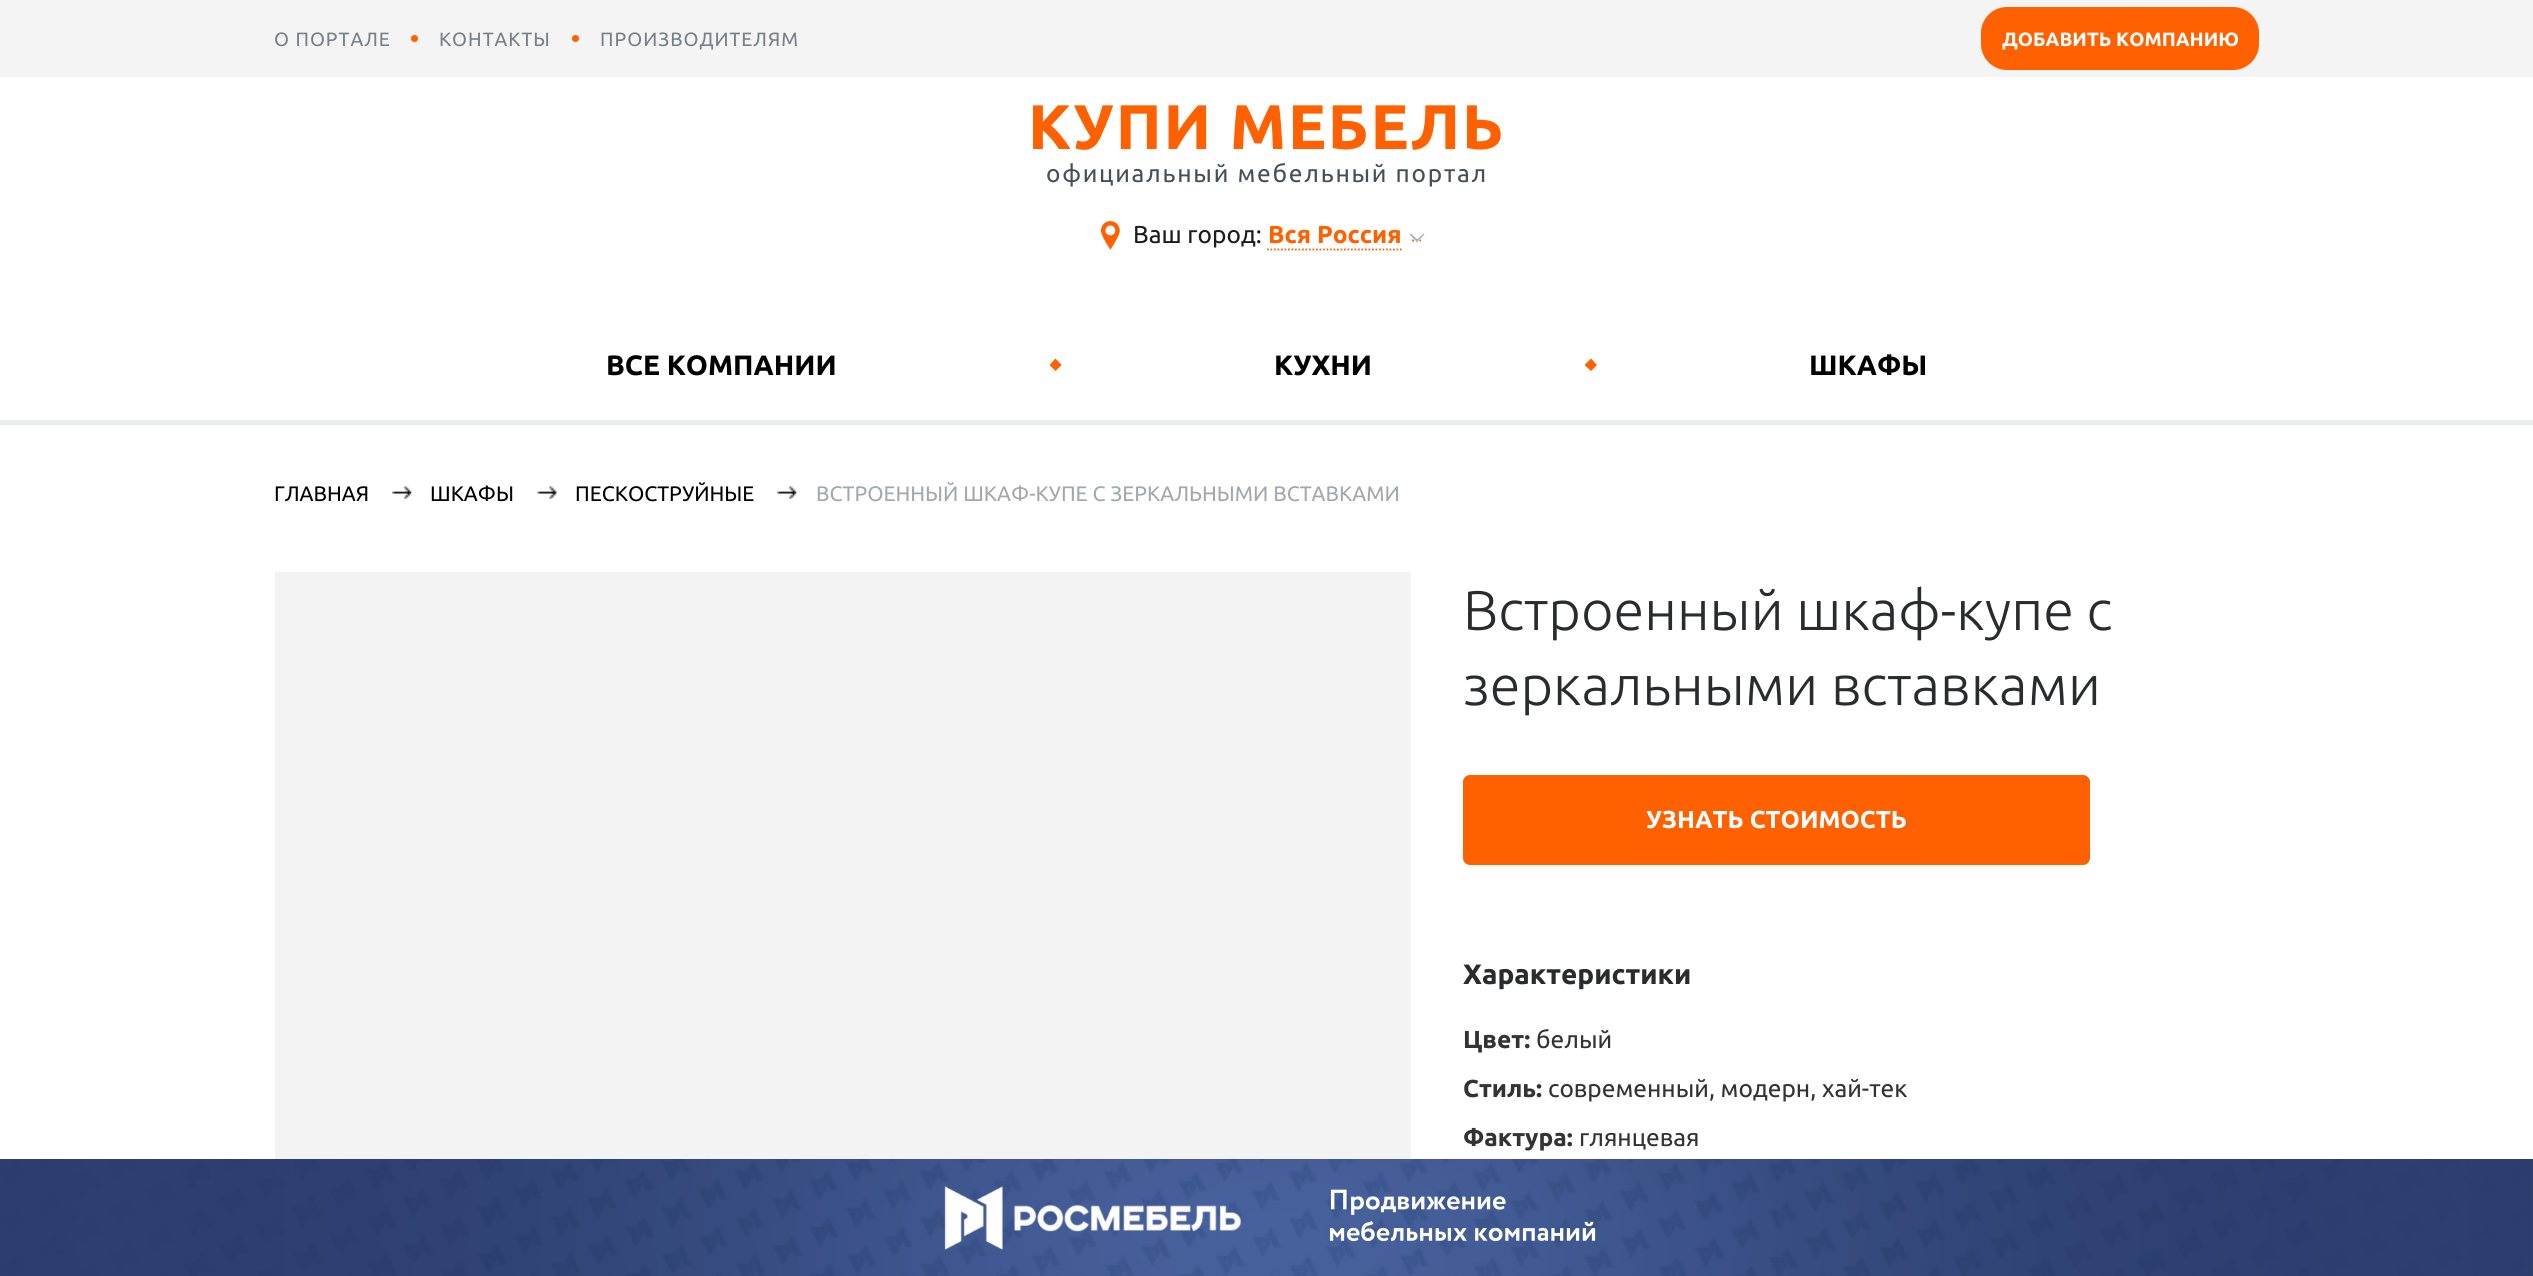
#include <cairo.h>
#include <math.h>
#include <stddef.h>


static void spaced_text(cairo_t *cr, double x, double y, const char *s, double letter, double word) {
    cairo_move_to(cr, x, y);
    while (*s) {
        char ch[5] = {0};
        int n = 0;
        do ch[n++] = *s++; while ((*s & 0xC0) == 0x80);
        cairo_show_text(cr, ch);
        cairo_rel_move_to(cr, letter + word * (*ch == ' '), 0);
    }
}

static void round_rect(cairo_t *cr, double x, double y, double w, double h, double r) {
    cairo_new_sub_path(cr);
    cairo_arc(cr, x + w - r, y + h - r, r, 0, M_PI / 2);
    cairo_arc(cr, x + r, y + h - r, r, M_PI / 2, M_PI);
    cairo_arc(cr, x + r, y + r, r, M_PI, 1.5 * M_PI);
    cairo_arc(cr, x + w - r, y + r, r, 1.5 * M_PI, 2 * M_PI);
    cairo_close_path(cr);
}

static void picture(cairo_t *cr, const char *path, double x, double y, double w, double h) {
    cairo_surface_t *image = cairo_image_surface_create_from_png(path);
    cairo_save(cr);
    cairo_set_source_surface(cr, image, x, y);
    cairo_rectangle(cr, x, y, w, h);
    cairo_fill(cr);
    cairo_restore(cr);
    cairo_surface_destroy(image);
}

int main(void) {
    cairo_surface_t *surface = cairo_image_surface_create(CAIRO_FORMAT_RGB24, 2533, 1276);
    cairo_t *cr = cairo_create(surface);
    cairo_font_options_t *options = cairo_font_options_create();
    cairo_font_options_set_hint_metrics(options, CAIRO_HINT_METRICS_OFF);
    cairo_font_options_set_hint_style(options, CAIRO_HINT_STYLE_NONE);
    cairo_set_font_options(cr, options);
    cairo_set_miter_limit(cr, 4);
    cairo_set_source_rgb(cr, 1, 1, 1);
    cairo_paint(cr);
    cairo_set_source_rgb(cr, 0.918, 0.922, 0.925);
    cairo_rectangle(cr, 0, 420, 2533, 5);
    cairo_fill(cr);
    cairo_set_source_rgb(cr, 0.957, 0.957, 0.957);
    cairo_rectangle(cr, 0, 0, 2533, 77);
    cairo_fill(cr);
    cairo_select_font_face(cr, "Ubuntu", CAIRO_FONT_SLANT_NORMAL, CAIRO_FONT_WEIGHT_NORMAL);
    cairo_set_font_size(cr, 19.25);
    cairo_set_source_rgb(cr, 0.459, 0.502, 0.537);
    spaced_text(cr, 274, 46, "О ПОРТАЛЕ", 1, 0);
    cairo_set_source_rgb(cr, 1, 0.376, 0);
    cairo_new_path(cr);
    cairo_arc(cr, 414.5, 38.5, 3.5, 0, 2 * M_PI);
    cairo_fill(cr);
    cairo_set_source_rgb(cr, 0.459, 0.502, 0.537);
    spaced_text(cr, 439, 46, "КОНТАКТЫ", 1, 0);
    cairo_set_source_rgb(cr, 1, 0.376, 0);
    cairo_new_path(cr);
    cairo_arc(cr, 575.5, 38.5, 3.5, 0, 2 * M_PI);
    cairo_fill(cr);
    cairo_set_source_rgb(cr, 0.459, 0.502, 0.537);
    spaced_text(cr, 600, 46, "ПРОИЗВОДИТЕЛЯМ", 1, 0);
    cairo_set_source_rgb(cr, 1, 0.376, 0);
    round_rect(cr, 1981, 7, 278, 63, 26);
    cairo_fill(cr);
    cairo_select_font_face(cr, "Ubuntu", CAIRO_FONT_SLANT_NORMAL, CAIRO_FONT_WEIGHT_BOLD);
    cairo_set_source_rgb(cr, 1, 1, 1);
    cairo_move_to(cr, 2002, 46);
    cairo_show_text(cr, "ДОБАВИТЬ КОМПАНИЮ");
    cairo_set_font_size(cr, 63);
    cairo_set_source_rgb(cr, 1, 0.376, 0);
    spaced_text(cr, 1028, 149, "КУПИ МЕБЕЛЬ", 1.75, 0);
    cairo_select_font_face(cr, "Ubuntu", CAIRO_FONT_SLANT_NORMAL, CAIRO_FONT_WEIGHT_NORMAL);
    cairo_set_font_size(cr, 24.5);
    cairo_set_source_rgb(cr, 0.271, 0.318, 0.349);
    spaced_text(cr, 1046, 182, "официальный мебельный портал", 1.75, 0);
    picture(cr, "img1.png", 1101, 221, 19, 29);
    cairo_set_source_rgb(cr, 0.114, 0.11, 0.11);
    cairo_move_to(cr, 1133, 243);
    cairo_show_text(cr, "Ваш город:");
    cairo_new_path(cr);
    cairo_move_to(cr, 1267, 249.5);
    cairo_line_to(cr, 1402, 249.5);
    cairo_set_source_rgb(cr, 1, 0.376, 0);
    cairo_set_line_width(cr, 1.8);
    cairo_set_dash(cr, (double[]){1.75, 1.75}, 2, 0);
    cairo_stroke(cr);
    cairo_new_path(cr);
    cairo_move_to(cr, 1412, 240.5);
    cairo_line_to(cr, 1414, 240.5);
    cairo_move_to(cr, 1416, 240.5);
    cairo_line_to(cr, 1417.5, 240.5);
    cairo_move_to(cr, 1419.5, 240.5);
    cairo_line_to(cr, 1421, 240.5);
    cairo_set_dash(cr, NULL, 0, 0);
    cairo_stroke(cr);
    cairo_select_font_face(cr, "Ubuntu", CAIRO_FONT_SLANT_NORMAL, CAIRO_FONT_WEIGHT_BOLD);
    cairo_move_to(cr, 1268, 243);
    cairo_show_text(cr, "Вся Россия");
    cairo_set_source_rgb(cr, 0.671, 0.698, 0.718);
    cairo_new_path(cr);
    cairo_move_to(cr, 1416, 240.5);
    cairo_line_to(cr, 1423.5, 233.5);
    cairo_line_to(cr, 1424.5, 234.5);
    cairo_line_to(cr, 1417, 242);
    cairo_close_path(cr);
    cairo_fill(cr);
    cairo_new_path(cr);
    cairo_move_to(cr, 1409.5, 234.5);
    cairo_line_to(cr, 1411, 233.5);
    cairo_line_to(cr, 1418.5, 240.5);
    cairo_line_to(cr, 1417, 242);
    cairo_close_path(cr);
    cairo_fill(cr);
    cairo_set_font_size(cr, 28);
    cairo_set_source_rgb(cr, 0, 0, 0);
    cairo_move_to(cr, 606, 375);
    cairo_show_text(cr, "ВСЕ КОМПАНИИ");
    cairo_set_source_rgb(cr, 1, 0.376, 0);
    cairo_new_path(cr);
    cairo_move_to(cr, 1055.5, 358.5);
    cairo_line_to(cr, 1061.5, 365);
    cairo_line_to(cr, 1055.5, 371);
    cairo_line_to(cr, 1049.5, 365);
    cairo_close_path(cr);
    cairo_fill(cr);
    cairo_set_source_rgb(cr, 0, 0, 0);
    cairo_move_to(cr, 1274, 375);
    cairo_show_text(cr, "КУХНИ");
    cairo_set_source_rgb(cr, 1, 0.376, 0);
    cairo_new_path(cr);
    cairo_move_to(cr, 1591, 358.5);
    cairo_line_to(cr, 1597, 365);
    cairo_line_to(cr, 1591, 371);
    cairo_line_to(cr, 1584.5, 365);
    cairo_close_path(cr);
    cairo_fill(cr);
    cairo_set_source_rgb(cr, 0, 0, 0);
    cairo_move_to(cr, 1809, 375);
    cairo_show_text(cr, "ШКАФЫ");
    cairo_select_font_face(cr, "Ubuntu", CAIRO_FONT_SLANT_NORMAL, CAIRO_FONT_WEIGHT_NORMAL);
    cairo_set_font_size(cr, 21);
    cairo_move_to(cr, 274, 501);
    cairo_show_text(cr, "ГЛАВНАЯ");
    picture(cr, "img2.png", 392, 486, 20, 13);
    cairo_move_to(cr, 430, 501);
    cairo_show_text(cr, "ШКАФЫ");
    picture(cr, "img3.png", 537, 486, 20, 13);
    cairo_move_to(cr, 575, 501);
    cairo_show_text(cr, "ПЕСКОСТРУЙНЫЕ");
    picture(cr, "img4.png", 777, 486, 20, 13);
    cairo_set_source_rgb(cr, 0.631, 0.663, 0.682);
    cairo_move_to(cr, 816, 501);
    cairo_show_text(cr, "ВСТРОЕННЫЙ ШКАФ-КУПЕ С ЗЕРКАЛЬНЫМИ ВСТАВКАМИ");
    cairo_set_source_rgb(cr, 0.953, 0.953, 0.953);
    cairo_rectangle(cr, 275, 572, 1136, 587);
    cairo_fill(cr);
    cairo_select_font_face(cr, "Ubuntu Light", CAIRO_FONT_SLANT_NORMAL, CAIRO_FONT_WEIGHT_NORMAL);
    cairo_set_font_size(cr, 56);
    cairo_set_source_rgb(cr, 0.161, 0.169, 0.173);
    cairo_move_to(cr, 1463, 630);
    cairo_show_text(cr, "Встроенный шкаф-купе с");
    cairo_move_to(cr, 1463, 705);
    cairo_show_text(cr, "зеркальными вставками");
    cairo_set_source_rgb(cr, 1, 0.376, 0);
    round_rect(cr, 1463, 775, 627, 90, 7);
    cairo_fill(cr);
    cairo_select_font_face(cr, "Ubuntu", CAIRO_FONT_SLANT_NORMAL, CAIRO_FONT_WEIGHT_BOLD);
    cairo_set_font_size(cr, 24.5);
    cairo_set_source_rgb(cr, 1, 1, 1);
    cairo_move_to(cr, 1646, 828);
    cairo_show_text(cr, "УЗНАТЬ СТОИМОСТЬ");
    cairo_set_font_size(cr, 28);
    cairo_set_source_rgb(cr, 0.161, 0.169, 0.173);
    cairo_move_to(cr, 1463, 984);
    cairo_show_text(cr, "Характеристики");
    cairo_set_font_size(cr, 24.5);
    cairo_set_source_rgb(cr, 0.2, 0.2, 0.2);
    cairo_move_to(cr, 1463, 1048);
    cairo_show_text(cr, "Цвет:");
    cairo_select_font_face(cr, "Ubuntu", CAIRO_FONT_SLANT_NORMAL, CAIRO_FONT_WEIGHT_NORMAL);
    cairo_move_to(cr, 1536, 1048);
    cairo_show_text(cr, "белый");
    cairo_select_font_face(cr, "Ubuntu", CAIRO_FONT_SLANT_NORMAL, CAIRO_FONT_WEIGHT_BOLD);
    cairo_move_to(cr, 1463, 1097);
    cairo_show_text(cr, "Стиль:");
    cairo_select_font_face(cr, "Ubuntu", CAIRO_FONT_SLANT_NORMAL, CAIRO_FONT_WEIGHT_NORMAL);
    cairo_move_to(cr, 1548, 1097);
    cairo_show_text(cr, "современный, модерн, хай-тек");
    cairo_select_font_face(cr, "Ubuntu", CAIRO_FONT_SLANT_NORMAL, CAIRO_FONT_WEIGHT_BOLD);
    cairo_move_to(cr, 1463, 1146);
    cairo_show_text(cr, "Фактура:");
    cairo_select_font_face(cr, "Ubuntu", CAIRO_FONT_SLANT_NORMAL, CAIRO_FONT_WEIGHT_NORMAL);
    cairo_move_to(cr, 1579, 1146);
    cairo_show_text(cr, "глянцевая");
    picture(cr, "img5.png", 0, 1159, 2533, 117);
    picture(cr, "img6.png", 944, 1186, 297, 64);
    picture(cr, "img7.png", 1330, 1189, 176, 26);
    picture(cr, "img8.png", 1330, 1221, 266, 21);
    cairo_surface_write_to_png(surface, "page.png");
    cairo_font_options_destroy(options);
    cairo_destroy(cr);
    cairo_surface_destroy(surface);
    return 0;
}
